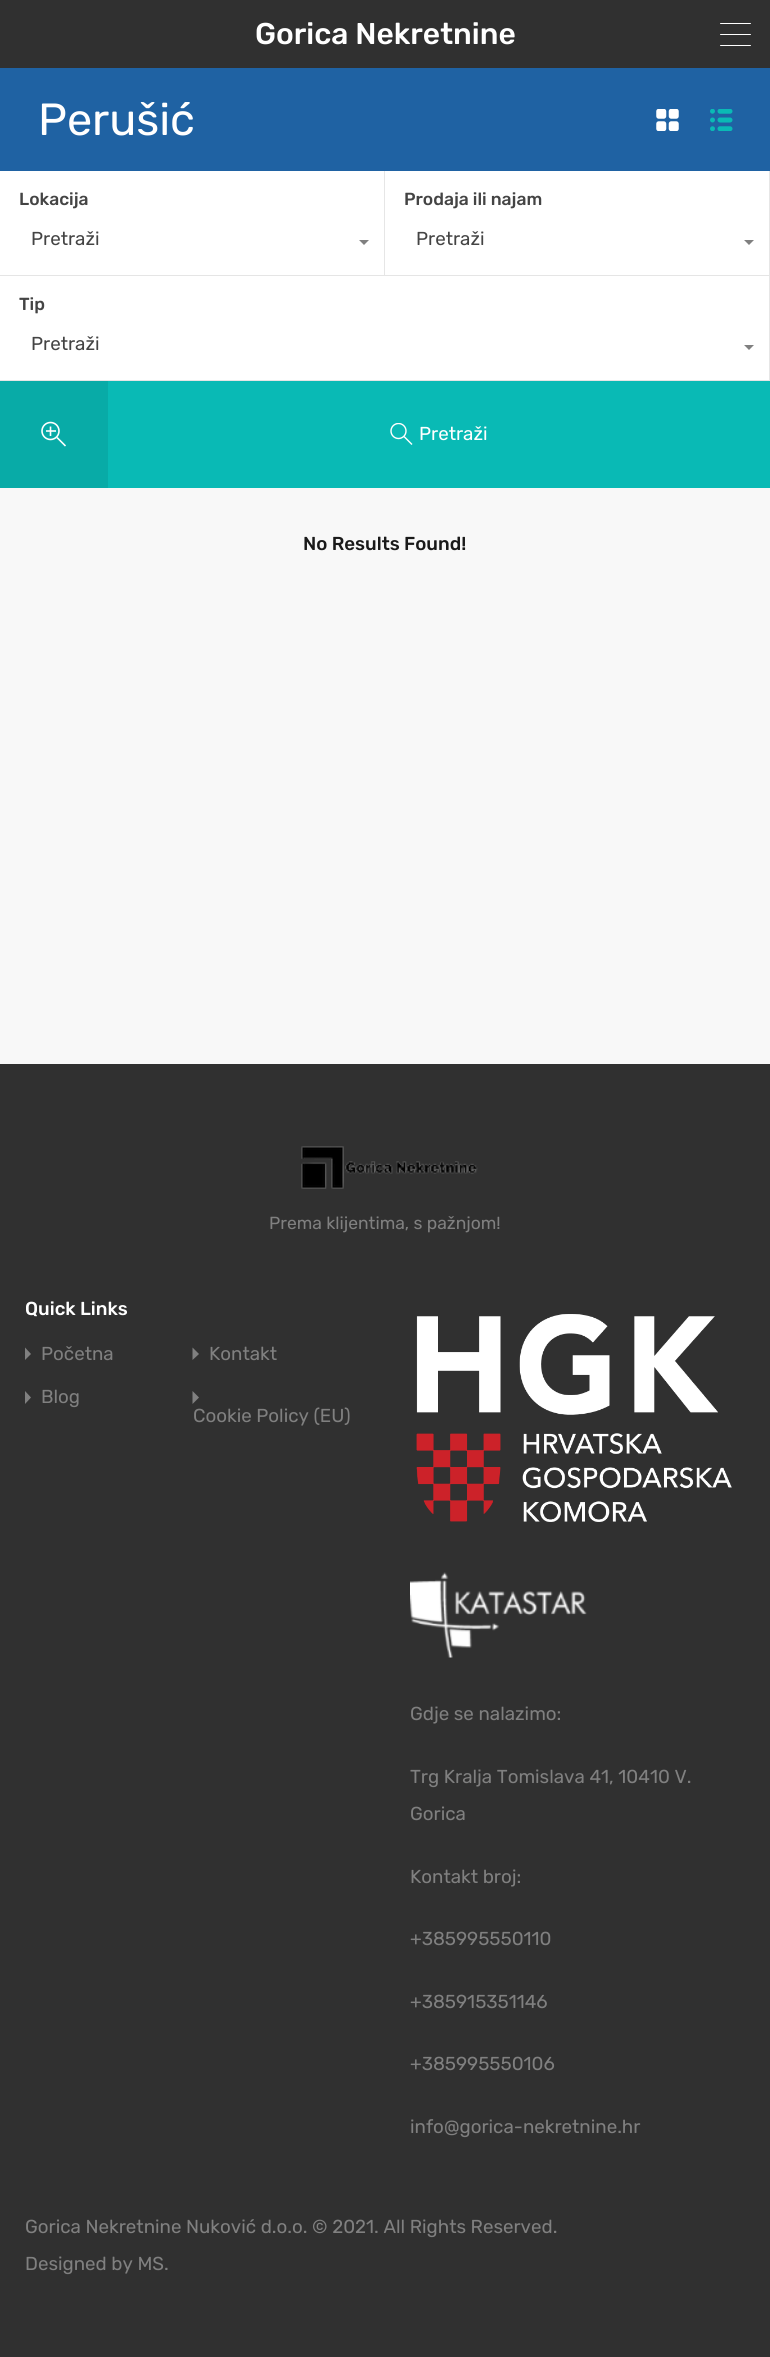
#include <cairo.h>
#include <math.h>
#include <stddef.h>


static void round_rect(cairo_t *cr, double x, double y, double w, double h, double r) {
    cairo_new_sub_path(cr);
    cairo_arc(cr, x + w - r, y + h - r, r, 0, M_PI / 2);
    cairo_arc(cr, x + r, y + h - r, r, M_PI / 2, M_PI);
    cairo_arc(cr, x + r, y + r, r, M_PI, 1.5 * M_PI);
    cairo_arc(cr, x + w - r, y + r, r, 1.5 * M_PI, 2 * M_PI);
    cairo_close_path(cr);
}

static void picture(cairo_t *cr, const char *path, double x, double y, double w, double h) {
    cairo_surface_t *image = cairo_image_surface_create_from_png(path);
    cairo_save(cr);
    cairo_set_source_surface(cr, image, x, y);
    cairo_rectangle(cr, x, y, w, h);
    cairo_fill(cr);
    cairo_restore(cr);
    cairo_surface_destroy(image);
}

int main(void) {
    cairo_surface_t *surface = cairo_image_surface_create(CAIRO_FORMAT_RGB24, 770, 2357);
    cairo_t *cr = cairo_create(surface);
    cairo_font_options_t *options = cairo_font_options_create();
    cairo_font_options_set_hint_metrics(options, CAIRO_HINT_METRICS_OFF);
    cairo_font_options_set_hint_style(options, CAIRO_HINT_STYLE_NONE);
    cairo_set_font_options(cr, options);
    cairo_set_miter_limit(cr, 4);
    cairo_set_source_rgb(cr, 0.969, 0.969, 0.969);
    cairo_paint(cr);
    cairo_set_source_rgb(cr, 0.188, 0.188, 0.188);
    cairo_rectangle(cr, 0, 0, 770, 68);
    cairo_fill(cr);
    cairo_select_font_face(cr, "Rubik Medium", CAIRO_FONT_SLANT_NORMAL, CAIRO_FONT_WEIGHT_NORMAL);
    cairo_set_font_size(cr, 30);
    cairo_set_source_rgb(cr, 1, 1, 1);
    cairo_move_to(cr, 255, 44);
    cairo_show_text(cr, "Gorica Nekretnine");
    round_rect(cr, 720, 34, 31, 1, 0.5);
    cairo_fill(cr);
    round_rect(cr, 720, 23, 31, 1, 0.5);
    cairo_fill(cr);
    round_rect(cr, 720, 45, 31, 1, 0.5);
    cairo_fill(cr);
    cairo_set_source_rgb(cr, 0.122, 0.384, 0.639);
    cairo_rectangle(cr, 0, 68, 770, 103);
    cairo_fill(cr);
    cairo_select_font_face(cr, "Rubik", CAIRO_FONT_SLANT_NORMAL, CAIRO_FONT_WEIGHT_NORMAL);
    cairo_set_font_size(cr, 45);
    cairo_set_source_rgb(cr, 1, 1, 1);
    cairo_move_to(cr, 38, 135);
    cairo_show_text(cr, "Perušić");
    picture(cr, "img1.png", 656, 109, 23, 22);
    picture(cr, "img2.png", 710, 109, 23, 22);
    cairo_rectangle(cr, 0, 171, 770, 210);
    cairo_fill(cr);
    cairo_set_source_rgb(cr, 0.902, 0.902, 0.902);
    cairo_new_path(cr);
    cairo_move_to(cr, 385, 171);
    cairo_line_to(cr, 385, 276);
    cairo_line_to(cr, 384, 275);
    cairo_line_to(cr, 384, 171);
    cairo_close_path(cr);
    cairo_fill(cr);
    cairo_set_source_rgba(cr, 0.502, 0.502, 0.502, 0.2);
    cairo_new_path(cr);
    cairo_move_to(cr, 385, 276);
    cairo_line_to(cr, 0, 276);
    cairo_line_to(cr, 0, 275);
    cairo_line_to(cr, 384, 275);
    cairo_close_path(cr);
    cairo_fill(cr);
    cairo_select_font_face(cr, "Rubik Medium", CAIRO_FONT_SLANT_NORMAL, CAIRO_FONT_WEIGHT_NORMAL);
    cairo_set_font_size(cr, 17.5);
    cairo_set_source_rgb(cr, 0.267, 0.267, 0.267);
    cairo_move_to(cr, 19, 205);
    cairo_show_text(cr, "Lokacija");
    cairo_select_font_face(cr, "Rubik", CAIRO_FONT_SLANT_NORMAL, CAIRO_FONT_WEIGHT_NORMAL);
    cairo_set_font_size(cr, 18.75);
    cairo_move_to(cr, 31, 245);
    cairo_show_text(cr, "Pretraži");
    cairo_set_source_rgb(cr, 0.502, 0.502, 0.502);
    cairo_new_path(cr);
    cairo_move_to(cr, 359, 240);
    cairo_line_to(cr, 369, 240);
    cairo_line_to(cr, 364, 245);
    cairo_close_path(cr);
    cairo_fill(cr);
    cairo_set_source_rgb(cr, 0.902, 0.902, 0.902);
    cairo_new_path(cr);
    cairo_move_to(cr, 770, 171);
    cairo_line_to(cr, 770, 276);
    cairo_line_to(cr, 769, 275);
    cairo_line_to(cr, 769, 171);
    cairo_close_path(cr);
    cairo_fill(cr);
    cairo_set_source_rgba(cr, 0.502, 0.502, 0.502, 0.2);
    cairo_new_path(cr);
    cairo_move_to(cr, 770, 276);
    cairo_line_to(cr, 385, 276);
    cairo_line_to(cr, 385, 275);
    cairo_line_to(cr, 769, 275);
    cairo_close_path(cr);
    cairo_fill(cr);
    cairo_select_font_face(cr, "Rubik Medium", CAIRO_FONT_SLANT_NORMAL, CAIRO_FONT_WEIGHT_NORMAL);
    cairo_set_font_size(cr, 17.5);
    cairo_set_source_rgb(cr, 0.267, 0.267, 0.267);
    cairo_move_to(cr, 404, 205);
    cairo_show_text(cr, "Prodaja ili najam");
    cairo_select_font_face(cr, "Rubik", CAIRO_FONT_SLANT_NORMAL, CAIRO_FONT_WEIGHT_NORMAL);
    cairo_set_font_size(cr, 18.75);
    cairo_move_to(cr, 416, 245);
    cairo_show_text(cr, "Pretraži");
    cairo_set_source_rgb(cr, 0.502, 0.502, 0.502);
    cairo_new_path(cr);
    cairo_move_to(cr, 744, 240);
    cairo_line_to(cr, 754, 240);
    cairo_line_to(cr, 749, 245);
    cairo_close_path(cr);
    cairo_fill(cr);
    cairo_set_source_rgb(cr, 0.902, 0.902, 0.902);
    cairo_new_path(cr);
    cairo_move_to(cr, 770, 276);
    cairo_line_to(cr, 770, 381);
    cairo_line_to(cr, 769, 380);
    cairo_line_to(cr, 769, 276);
    cairo_close_path(cr);
    cairo_fill(cr);
    cairo_set_source_rgba(cr, 0.502, 0.502, 0.502, 0.2);
    cairo_new_path(cr);
    cairo_move_to(cr, 770, 381);
    cairo_line_to(cr, 0, 381);
    cairo_line_to(cr, 0, 380);
    cairo_line_to(cr, 769, 380);
    cairo_close_path(cr);
    cairo_fill(cr);
    cairo_select_font_face(cr, "Rubik Medium", CAIRO_FONT_SLANT_NORMAL, CAIRO_FONT_WEIGHT_NORMAL);
    cairo_set_font_size(cr, 17.5);
    cairo_set_source_rgb(cr, 0.267, 0.267, 0.267);
    cairo_move_to(cr, 19, 310);
    cairo_show_text(cr, "Tip");
    cairo_select_font_face(cr, "Rubik", CAIRO_FONT_SLANT_NORMAL, CAIRO_FONT_WEIGHT_NORMAL);
    cairo_set_font_size(cr, 18.75);
    cairo_move_to(cr, 31, 350);
    cairo_show_text(cr, "Pretraži");
    cairo_set_source_rgb(cr, 0.502, 0.502, 0.502);
    cairo_new_path(cr);
    cairo_move_to(cr, 744, 345);
    cairo_line_to(cr, 754, 345);
    cairo_line_to(cr, 749, 350);
    cairo_close_path(cr);
    cairo_fill(cr);
    cairo_set_source_rgb(cr, 0.035, 0.671, 0.655);
    cairo_rectangle(cr, 0, 381, 108, 107);
    cairo_fill(cr);
    cairo_arc(cr, 50.5, 431, 8.5, 0, 2 * M_PI);
    cairo_set_source_rgb(cr, 1, 1, 1);
    cairo_set_line_width(cr, 1.6);
    cairo_stroke(cr);
    cairo_new_path(cr);
    cairo_move_to(cr, 57, 437.5);
    cairo_line_to(cr, 65.5, 446);
    cairo_move_to(cr, 50.5, 426.5);
    cairo_line_to(cr, 50.5, 436);
    cairo_set_line_join(cr, CAIRO_LINE_JOIN_ROUND);
    cairo_stroke(cr);
    cairo_set_source_rgba(cr, 1, 1, 1, 0.8);
    cairo_rectangle(cr, 46, 430, 10, 2);
    cairo_fill(cr);
    cairo_set_source_rgb(cr, 0.039, 0.729, 0.71);
    cairo_rectangle(cr, 108, 381, 662, 107);
    cairo_fill(cr);
    cairo_save(cr);
    cairo_rectangle(cr, 390, 423, 23, 22);
    cairo_clip(cr);
    cairo_arc(cr, 398.5, 431, 7.5, 0, 2 * M_PI);
    cairo_set_source_rgb(cr, 1, 1, 1);
    cairo_set_line_width(cr, 1.4);
    cairo_set_line_join(cr, CAIRO_LINE_JOIN_MITER);
    cairo_stroke(cr);
    cairo_restore(cr);
    cairo_new_path(cr);
    cairo_move_to(cr, 404, 436.5);
    cairo_line_to(cr, 412, 444.5);
    cairo_set_source_rgb(cr, 1, 1, 1);
    cairo_set_line_width(cr, 1.4);
    cairo_stroke(cr);
    cairo_move_to(cr, 419, 440);
    cairo_show_text(cr, "Pretraži");
    cairo_select_font_face(cr, "Rubik Medium", CAIRO_FONT_SLANT_NORMAL, CAIRO_FONT_WEIGHT_NORMAL);
    cairo_set_source_rgb(cr, 0.102, 0.102, 0.102);
    cairo_move_to(cr, 303, 550);
    cairo_show_text(cr, "No Results Found!");
    cairo_set_source_rgb(cr, 0.188, 0.188, 0.188);
    cairo_rectangle(cr, 0, 1064, 770, 1293);
    cairo_fill(cr);
    picture(cr, "img3.png", 301, 1146, 177, 43);
    cairo_select_font_face(cr, "Rubik", CAIRO_FONT_SLANT_NORMAL, CAIRO_FONT_WEIGHT_NORMAL);
    cairo_set_font_size(cr, 17.5);
    cairo_set_source_rgb(cr, 0.502, 0.502, 0.502);
    cairo_move_to(cr, 269, 1229);
    cairo_show_text(cr, "Prema klijentima, s pažnjom!");
    cairo_select_font_face(cr, "Rubik Medium", CAIRO_FONT_SLANT_NORMAL, CAIRO_FONT_WEIGHT_NORMAL);
    cairo_set_font_size(cr, 18.75);
    cairo_set_source_rgb(cr, 1, 1, 1);
    cairo_move_to(cr, 25, 1315);
    cairo_show_text(cr, "Quick Links");
    cairo_set_source_rgb(cr, 0.502, 0.502, 0.502);
    cairo_new_path(cr);
    cairo_move_to(cr, 25, 1360);
    cairo_line_to(cr, 25, 1347.5);
    cairo_line_to(cr, 31, 1354);
    cairo_close_path(cr);
    cairo_fill(cr);
    cairo_select_font_face(cr, "Rubik", CAIRO_FONT_SLANT_NORMAL, CAIRO_FONT_WEIGHT_NORMAL);
    cairo_move_to(cr, 41, 1360);
    cairo_show_text(cr, "Početna");
    cairo_new_path(cr);
    cairo_move_to(cr, 192.5, 1360);
    cairo_line_to(cr, 192.5, 1347.5);
    cairo_line_to(cr, 199, 1354);
    cairo_close_path(cr);
    cairo_fill(cr);
    cairo_move_to(cr, 209, 1360);
    cairo_show_text(cr, "Kontakt");
    cairo_new_path(cr);
    cairo_move_to(cr, 25, 1404);
    cairo_line_to(cr, 25, 1391);
    cairo_line_to(cr, 31, 1397.5);
    cairo_close_path(cr);
    cairo_fill(cr);
    cairo_move_to(cr, 41, 1403);
    cairo_show_text(cr, "Blog");
    cairo_new_path(cr);
    cairo_move_to(cr, 192.5, 1404);
    cairo_line_to(cr, 192.5, 1391);
    cairo_line_to(cr, 199, 1397.5);
    cairo_close_path(cr);
    cairo_fill(cr);
    cairo_move_to(cr, 193, 1422);
    cairo_show_text(cr, "Cookie Policy (EU)");
    picture(cr, "img4.png", 416, 1314, 316, 208);
    picture(cr, "img5.png", 410, 1572, 177, 86);
    cairo_move_to(cr, 410, 1720);
    cairo_show_text(cr, "Gdje se nalazimo:");
    cairo_move_to(cr, 410, 1783);
    cairo_show_text(cr, "Trg Kralja Tomislava 41, 10410 V.");
    cairo_move_to(cr, 410, 1820);
    cairo_show_text(cr, "Gorica");
    cairo_move_to(cr, 410, 1883);
    cairo_show_text(cr, "Kontakt broj:");
    cairo_move_to(cr, 410, 1945);
    cairo_show_text(cr, "+385995550110");
    cairo_move_to(cr, 410, 2008);
    cairo_show_text(cr, "+385915351146");
    cairo_move_to(cr, 410, 2070);
    cairo_show_text(cr, "+385995550106");
    cairo_move_to(cr, 410, 2133);
    cairo_show_text(cr, "info@gorica-nekretnine.hr");
    cairo_move_to(cr, 25, 2233);
    cairo_show_text(cr, "Gorica Nekretnine Nuković d.o.o. © 2021. All Rights Reserved.");
    cairo_move_to(cr, 25, 2270);
    cairo_show_text(cr, "Designed by MS.");
    cairo_surface_write_to_png(surface, "page.png");
    cairo_font_options_destroy(options);
    cairo_destroy(cr);
    cairo_surface_destroy(surface);
    return 0;
}
